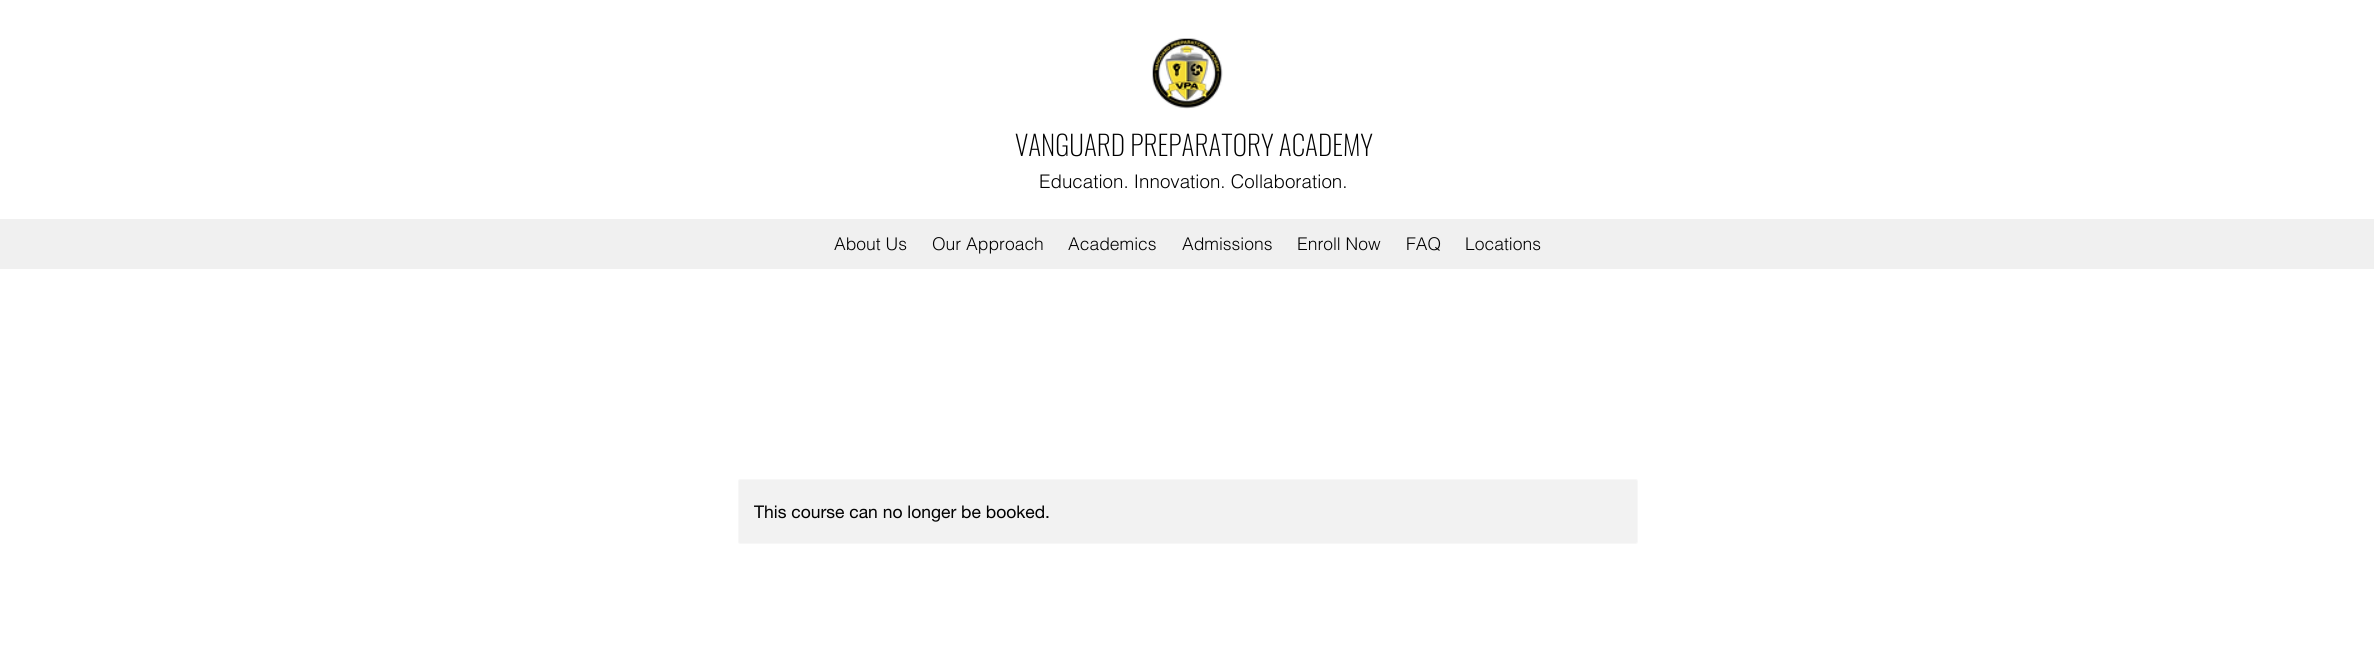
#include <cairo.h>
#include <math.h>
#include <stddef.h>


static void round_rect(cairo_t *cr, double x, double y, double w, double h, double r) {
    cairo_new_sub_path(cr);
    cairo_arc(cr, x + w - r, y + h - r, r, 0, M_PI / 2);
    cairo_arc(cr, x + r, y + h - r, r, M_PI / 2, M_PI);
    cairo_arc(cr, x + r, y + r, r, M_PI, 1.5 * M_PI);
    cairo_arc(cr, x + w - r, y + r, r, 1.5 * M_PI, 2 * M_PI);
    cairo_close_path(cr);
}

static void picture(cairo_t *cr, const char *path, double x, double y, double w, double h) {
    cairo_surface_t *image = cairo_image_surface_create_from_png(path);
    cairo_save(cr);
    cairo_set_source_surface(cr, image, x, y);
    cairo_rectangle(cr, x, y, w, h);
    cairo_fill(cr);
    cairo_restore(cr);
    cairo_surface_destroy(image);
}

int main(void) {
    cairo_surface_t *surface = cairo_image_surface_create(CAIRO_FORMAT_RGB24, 2374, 645);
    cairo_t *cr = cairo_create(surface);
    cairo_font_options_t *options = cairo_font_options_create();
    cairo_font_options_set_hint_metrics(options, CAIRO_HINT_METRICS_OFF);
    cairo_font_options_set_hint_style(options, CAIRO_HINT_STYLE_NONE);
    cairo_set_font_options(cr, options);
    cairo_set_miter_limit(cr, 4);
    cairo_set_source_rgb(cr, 1, 1, 1);
    cairo_paint(cr);
    picture(cr, "img1.png", 1152, 38, 71, 71);
    cairo_select_font_face(cr, "Oswald ExtraLight", CAIRO_FONT_SLANT_NORMAL, CAIRO_FONT_WEIGHT_NORMAL);
    cairo_set_font_size(cr, 27.5);
    cairo_set_source_rgb(cr, 0, 0, 0);
    cairo_move_to(cr, 1015, 156);
    cairo_show_text(cr, "VANGUARD PREPARATORY ACADEMY");
    cairo_select_font_face(cr, "helvetica Light", CAIRO_FONT_SLANT_NORMAL, CAIRO_FONT_WEIGHT_NORMAL);
    cairo_set_font_size(cr, 18.75);
    cairo_move_to(cr, 1039, 188);
    cairo_show_text(cr, "Education. Innovation. Collaboration.");
    cairo_set_source_rgb(cr, 0.941, 0.941, 0.941);
    cairo_rectangle(cr, 0, 219, 2374, 50);
    cairo_fill(cr);
    cairo_set_font_size(cr, 17.5);
    cairo_set_source_rgb(cr, 0, 0, 0);
    cairo_move_to(cr, 834, 250);
    cairo_show_text(cr, "About Us");
    cairo_move_to(cr, 932, 250);
    cairo_show_text(cr, "Our Approach");
    cairo_move_to(cr, 1068, 250);
    cairo_show_text(cr, "Academics");
    cairo_move_to(cr, 1182, 250);
    cairo_show_text(cr, "Admissions");
    cairo_move_to(cr, 1297, 250);
    cairo_show_text(cr, "Enroll Now");
    cairo_move_to(cr, 1406, 250);
    cairo_show_text(cr, "FAQ");
    cairo_move_to(cr, 1465, 250);
    cairo_show_text(cr, "Locations");
    cairo_set_source_rgb(cr, 0.949, 0.949, 0.949);
    round_rect(cr, 738, 479, 900, 65, 2.5);
    cairo_fill(cr);
    round_rect(cr, 738.5, 479.5, 899, 64, 2);
    cairo_set_source_rgba(cr, 1, 1, 1, 0.4);
    cairo_set_line_width(cr, 1);
    cairo_stroke(cr);
    cairo_select_font_face(cr, "Helvetica Neue", CAIRO_FONT_SLANT_NORMAL, CAIRO_FONT_WEIGHT_NORMAL);
    cairo_set_source_rgb(cr, 0, 0, 0);
    cairo_move_to(cr, 754, 518);
    cairo_show_text(cr, "This course can no longer be booked.");
    cairo_surface_write_to_png(surface, "page.png");
    cairo_font_options_destroy(options);
    cairo_destroy(cr);
    cairo_surface_destroy(surface);
    return 0;
}
